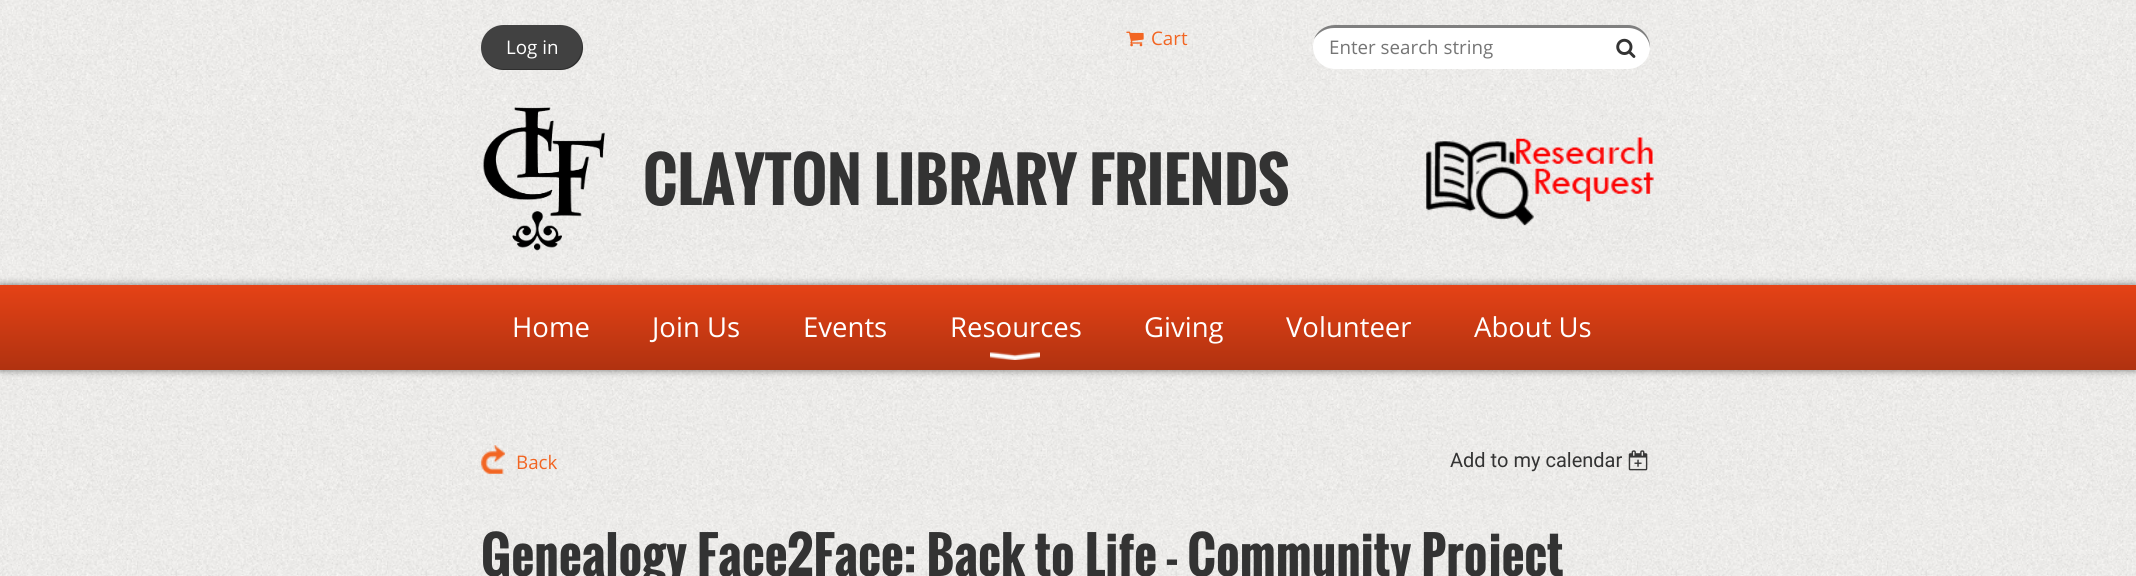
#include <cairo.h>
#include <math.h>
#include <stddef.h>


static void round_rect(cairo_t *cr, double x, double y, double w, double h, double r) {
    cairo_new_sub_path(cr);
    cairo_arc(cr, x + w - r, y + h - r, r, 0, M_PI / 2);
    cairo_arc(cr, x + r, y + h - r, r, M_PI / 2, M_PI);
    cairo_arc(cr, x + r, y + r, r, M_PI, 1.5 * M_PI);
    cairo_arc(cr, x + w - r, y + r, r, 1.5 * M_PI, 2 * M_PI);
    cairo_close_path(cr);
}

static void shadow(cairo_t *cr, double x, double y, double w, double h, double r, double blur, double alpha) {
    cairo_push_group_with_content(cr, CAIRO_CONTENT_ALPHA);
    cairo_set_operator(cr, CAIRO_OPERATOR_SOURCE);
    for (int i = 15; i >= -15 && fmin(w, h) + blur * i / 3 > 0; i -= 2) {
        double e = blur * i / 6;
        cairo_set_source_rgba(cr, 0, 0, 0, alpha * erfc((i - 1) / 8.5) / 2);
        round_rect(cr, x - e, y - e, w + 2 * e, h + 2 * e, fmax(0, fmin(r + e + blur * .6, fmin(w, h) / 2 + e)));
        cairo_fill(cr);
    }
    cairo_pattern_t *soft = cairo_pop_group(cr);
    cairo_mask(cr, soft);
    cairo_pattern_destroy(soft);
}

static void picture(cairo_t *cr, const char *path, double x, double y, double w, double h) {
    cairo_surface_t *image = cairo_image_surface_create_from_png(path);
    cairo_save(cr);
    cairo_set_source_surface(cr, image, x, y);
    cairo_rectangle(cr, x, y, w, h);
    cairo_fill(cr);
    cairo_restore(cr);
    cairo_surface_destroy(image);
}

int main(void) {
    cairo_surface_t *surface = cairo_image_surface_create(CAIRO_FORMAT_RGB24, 2136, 576);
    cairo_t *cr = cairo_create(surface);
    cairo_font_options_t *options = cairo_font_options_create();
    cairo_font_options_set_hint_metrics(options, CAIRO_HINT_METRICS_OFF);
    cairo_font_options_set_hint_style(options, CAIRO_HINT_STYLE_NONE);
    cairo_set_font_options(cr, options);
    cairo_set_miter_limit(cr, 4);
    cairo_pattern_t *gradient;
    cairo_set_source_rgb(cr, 1, 1, 1);
    cairo_paint(cr);
    picture(cr, "img1.png", 0, 0, 2136, 576);
    cairo_set_source_rgb(cr, 0.255, 0.255, 0.255);
    round_rect(cr, 481, 25, 102, 45, 22.5);
    cairo_fill(cr);
    cairo_set_source_rgba(cr, 0, 0, 0, 0.3);
    cairo_new_path(cr);
    cairo_move_to(cr, 481, 47);
    cairo_line_to(cr, 481, 48);
    cairo_curve_to(cr, 481, 60, 491, 70, 504, 70);
    cairo_line_to(cr, 560, 70);
    cairo_curve_to(cr, 573, 70, 583, 60, 583, 48);
    cairo_curve_to(cr, 583, 42, 581, 37, 577, 33);
    cairo_curve_to(cr, 580, 36, 582, 41, 582, 46);
    cairo_curve_to(cr, 582, 59, 572, 69, 560, 69);
    cairo_line_to(cr, 504, 69);
    cairo_curve_to(cr, 491, 69, 481, 59, 481, 47);
    cairo_close_path(cr);
    cairo_fill(cr);
    cairo_select_font_face(cr, "Open Sans", CAIRO_FONT_SLANT_NORMAL, CAIRO_FONT_WEIGHT_NORMAL);
    cairo_set_font_size(cr, 18.75);
    cairo_set_source_rgb(cr, 1, 1, 1);
    cairo_move_to(cr, 506, 54);
    cairo_show_text(cr, "Log in");
    picture(cr, "img2.png", 1126, 31, 18, 16);
    cairo_set_source_rgb(cr, 0.949, 0.396, 0.133);
    cairo_move_to(cr, 1151, 45);
    cairo_show_text(cr, "Cart");
    cairo_set_source_rgb(cr, 1, 1, 1);
    round_rect(cr, 1313, 25, 337, 44, 22);
    cairo_fill(cr);
    cairo_set_source_rgba(cr, 0, 0, 0, 0.5);
    cairo_new_path(cr);
    cairo_move_to(cr, 1334, 28);
    cairo_line_to(cr, 1628, 28);
    cairo_curve_to(cr, 1640, 28, 1649, 37, 1650, 48);
    cairo_line_to(cr, 1650, 47);
    cairo_curve_to(cr, 1650, 35, 1640, 25, 1628, 25);
    cairo_line_to(cr, 1335, 25);
    cairo_curve_to(cr, 1325, 25, 1317, 31, 1314, 39);
    cairo_curve_to(cr, 1318, 33, 1325, 28, 1334, 28);
    cairo_close_path(cr);
    cairo_fill(cr);
    cairo_set_source_rgb(cr, 0.459, 0.459, 0.459);
    cairo_move_to(cr, 1329, 54);
    cairo_show_text(cr, "Enter search string");
    picture(cr, "img3.png", 1616, 38, 20, 20);
    picture(cr, "img4.png", 483, 107, 122, 144);
    cairo_select_font_face(cr, "Oswald", CAIRO_FONT_SLANT_NORMAL, CAIRO_FONT_WEIGHT_BOLD);
    cairo_set_font_size(cr, 60);
    cairo_set_source_rgb(cr, 0.2, 0.2, 0.2);
    cairo_move_to(cr, 643, 205);
    cairo_show_text(cr, "CLAYTON LIBRARY FRIENDS");
    picture(cr, "img5.png", 1426, 137, 228, 89);
    cairo_set_source_rgb(cr, 0, 0, 0);
    shadow(cr, 0, 285, 2136, 85, 0, 4, 0.5);
    gradient = cairo_pattern_create_linear(1068, 285, 1068, 370);
    cairo_pattern_add_color_stop_rgba(gradient, 0, 0.898, 0.259, 0.086, 1);
    cairo_pattern_add_color_stop_rgba(gradient, 1, 0.69, 0.196, 0.063, 1);
    cairo_set_source(cr, gradient);
    cairo_pattern_destroy(gradient);
    cairo_rectangle(cr, 0, 285, 2136, 85);
    cairo_fill(cr);
    cairo_select_font_face(cr, "Open Sans", CAIRO_FONT_SLANT_NORMAL, CAIRO_FONT_WEIGHT_NORMAL);
    cairo_set_font_size(cr, 27.5);
    cairo_set_source_rgb(cr, 1, 1, 1);
    cairo_move_to(cr, 512, 337);
    cairo_show_text(cr, "Home");
    cairo_move_to(cr, 652, 337);
    cairo_show_text(cr, "Join Us");
    cairo_move_to(cr, 803, 337);
    cairo_show_text(cr, "Events");
    cairo_move_to(cr, 950, 337);
    cairo_show_text(cr, "Resources");
    picture(cr, "img6.png", 990, 352, 50, 8);
    cairo_move_to(cr, 1144, 337);
    cairo_show_text(cr, "Giving");
    cairo_move_to(cr, 1286, 337);
    cairo_show_text(cr, "Volunteer");
    cairo_move_to(cr, 1474, 337);
    cairo_show_text(cr, "About Us");
    picture(cr, "img7.png", 481, 445, 24, 29);
    cairo_set_font_size(cr, 18.75);
    cairo_set_source_rgb(cr, 0.949, 0.396, 0.133);
    cairo_move_to(cr, 516, 469);
    cairo_show_text(cr, "Back");
    cairo_select_font_face(cr, "Roboto", CAIRO_FONT_SLANT_NORMAL, CAIRO_FONT_WEIGHT_NORMAL);
    cairo_set_font_size(cr, 20);
    cairo_set_source_rgb(cr, 0.2, 0.2, 0.2);
    cairo_move_to(cr, 1450, 467);
    cairo_show_text(cr, "Add to my calendar");
    picture(cr, "img8.png", 1628, 450, 20, 21);
    cairo_select_font_face(cr, "Oswald", CAIRO_FONT_SLANT_NORMAL, CAIRO_FONT_WEIGHT_BOLD);
    cairo_set_font_size(cr, 50);
    cairo_move_to(cr, 481, 576);
    cairo_show_text(cr, "Genealogy Face2Face: Back to Life - Community Project");
    cairo_surface_write_to_png(surface, "page.png");
    cairo_font_options_destroy(options);
    cairo_destroy(cr);
    cairo_surface_destroy(surface);
    return 0;
}
